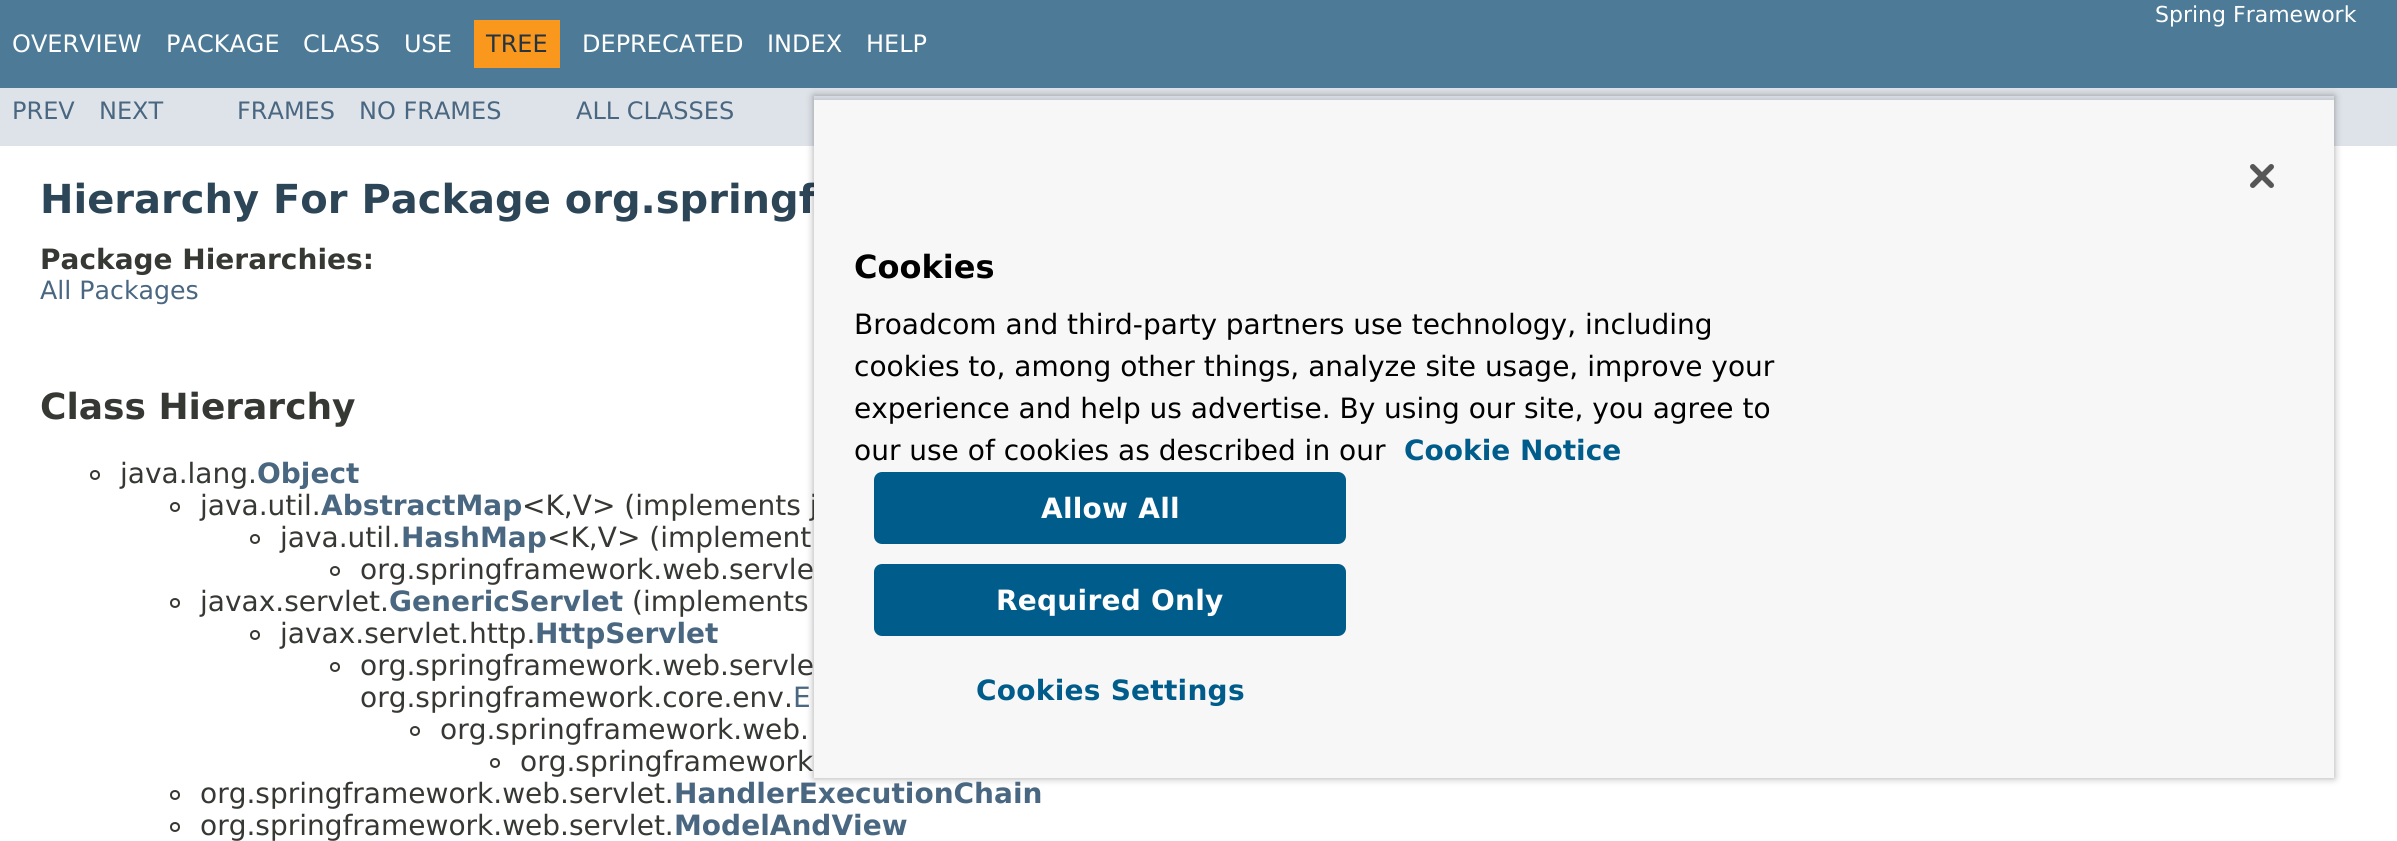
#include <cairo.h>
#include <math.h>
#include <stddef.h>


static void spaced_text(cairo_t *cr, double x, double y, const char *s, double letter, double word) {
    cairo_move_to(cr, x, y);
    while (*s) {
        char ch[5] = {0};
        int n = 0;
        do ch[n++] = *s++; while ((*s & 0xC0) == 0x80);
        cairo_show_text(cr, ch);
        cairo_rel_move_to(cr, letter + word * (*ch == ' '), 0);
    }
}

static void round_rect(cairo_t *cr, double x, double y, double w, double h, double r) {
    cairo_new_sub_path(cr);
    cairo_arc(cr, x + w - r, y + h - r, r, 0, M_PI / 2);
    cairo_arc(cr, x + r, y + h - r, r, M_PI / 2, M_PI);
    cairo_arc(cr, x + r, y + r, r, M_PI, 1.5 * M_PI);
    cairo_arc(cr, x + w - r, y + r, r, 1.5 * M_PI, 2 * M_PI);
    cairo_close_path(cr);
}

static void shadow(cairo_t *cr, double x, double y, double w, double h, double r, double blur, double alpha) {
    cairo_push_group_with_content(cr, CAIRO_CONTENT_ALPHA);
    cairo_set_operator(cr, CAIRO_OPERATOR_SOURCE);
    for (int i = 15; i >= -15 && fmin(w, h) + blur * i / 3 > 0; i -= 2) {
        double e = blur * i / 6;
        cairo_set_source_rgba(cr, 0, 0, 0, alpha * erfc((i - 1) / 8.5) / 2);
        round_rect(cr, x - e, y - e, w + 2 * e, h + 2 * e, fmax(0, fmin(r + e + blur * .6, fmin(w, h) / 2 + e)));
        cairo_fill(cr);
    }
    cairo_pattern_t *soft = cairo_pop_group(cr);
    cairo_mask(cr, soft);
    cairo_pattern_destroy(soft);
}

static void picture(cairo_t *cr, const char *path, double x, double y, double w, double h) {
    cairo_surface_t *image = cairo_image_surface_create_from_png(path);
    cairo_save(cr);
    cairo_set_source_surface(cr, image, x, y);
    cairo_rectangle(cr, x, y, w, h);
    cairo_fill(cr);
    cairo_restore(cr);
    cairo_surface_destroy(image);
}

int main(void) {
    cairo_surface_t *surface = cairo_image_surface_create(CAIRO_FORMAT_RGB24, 2397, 841);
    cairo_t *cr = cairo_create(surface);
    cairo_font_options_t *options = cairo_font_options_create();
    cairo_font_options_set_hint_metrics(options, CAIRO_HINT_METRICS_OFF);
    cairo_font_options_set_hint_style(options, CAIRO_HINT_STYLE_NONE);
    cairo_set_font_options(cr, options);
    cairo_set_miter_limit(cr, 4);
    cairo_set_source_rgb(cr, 1, 1, 1);
    cairo_paint(cr);
    cairo_set_source_rgb(cr, 0.302, 0.478, 0.592);
    cairo_rectangle(cr, 0, 0, 2397, 88);
    cairo_fill(cr);
    cairo_select_font_face(cr, "DejaVu Sans", CAIRO_FONT_SLANT_NORMAL, CAIRO_FONT_WEIGHT_NORMAL);
    cairo_set_font_size(cr, 22);
    cairo_set_source_rgb(cr, 1, 1, 1);
    cairo_move_to(cr, 2155, 22);
    cairo_show_text(cr, "Spring Framework");
    cairo_set_font_size(cr, 24);
    cairo_move_to(cr, 12, 52);
    cairo_show_text(cr, "OVERVIEW");
    cairo_move_to(cr, 166, 52);
    cairo_show_text(cr, "PACKAGE");
    cairo_move_to(cr, 303, 52);
    cairo_show_text(cr, "CLASS");
    cairo_move_to(cr, 404, 52);
    cairo_show_text(cr, "USE");
    cairo_set_source_rgb(cr, 0.973, 0.596, 0.114);
    cairo_rectangle(cr, 474, 20, 86, 48);
    cairo_fill(cr);
    cairo_set_source_rgb(cr, 0.145, 0.204, 0.255);
    cairo_move_to(cr, 486, 52);
    cairo_show_text(cr, "TREE");
    cairo_set_source_rgb(cr, 1, 1, 1);
    cairo_move_to(cr, 582, 52);
    cairo_show_text(cr, "DEPRECATED");
    cairo_move_to(cr, 767, 52);
    cairo_show_text(cr, "INDEX");
    cairo_move_to(cr, 866, 52);
    cairo_show_text(cr, "HELP");
    cairo_set_source_rgb(cr, 0.871, 0.89, 0.914);
    cairo_rectangle(cr, 0, 88, 2397, 58);
    cairo_fill(cr);
    cairo_set_source_rgb(cr, 0.29, 0.404, 0.51);
    cairo_move_to(cr, 12, 119);
    cairo_show_text(cr, "PREV");
    cairo_move_to(cr, 99, 119);
    cairo_show_text(cr, "NEXT");
    cairo_move_to(cr, 237, 119);
    cairo_show_text(cr, "FRAMES");
    cairo_move_to(cr, 359, 119);
    cairo_show_text(cr, "NO FRAMES");
    cairo_move_to(cr, 576, 119);
    cairo_show_text(cr, "ALL CLASSES");
    cairo_select_font_face(cr, "DejaVu Sans", CAIRO_FONT_SLANT_NORMAL, CAIRO_FONT_WEIGHT_BOLD);
    cairo_set_font_size(cr, 40);
    cairo_set_source_rgb(cr, 0.173, 0.271, 0.341);
    cairo_move_to(cr, 40, 213);
    cairo_show_text(cr, "Hierarchy For Package org.springf");
    cairo_set_font_size(cr, 28);
    cairo_set_source_rgb(cr, 0.208, 0.22, 0.2);
    cairo_move_to(cr, 40, 269);
    cairo_show_text(cr, "Package Hierarchies:");
    cairo_select_font_face(cr, "DejaVu Sans", CAIRO_FONT_SLANT_NORMAL, CAIRO_FONT_WEIGHT_NORMAL);
    cairo_set_font_size(cr, 25.25);
    cairo_set_source_rgb(cr, 0.29, 0.404, 0.51);
    cairo_move_to(cr, 40, 299);
    cairo_show_text(cr, "All Packages");
    cairo_save(cr);
    cairo_set_fill_rule(cr, CAIRO_FILL_RULE_EVEN_ODD);
    cairo_new_path(cr);
    cairo_move_to(cr, 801, 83);
    cairo_line_to(cr, 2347, 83);
    cairo_line_to(cr, 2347, 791);
    cairo_line_to(cr, 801, 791);
    cairo_close_path(cr);
    cairo_move_to(cr, 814, 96);
    cairo_line_to(cr, 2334, 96);
    cairo_line_to(cr, 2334, 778);
    cairo_line_to(cr, 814, 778);
    cairo_close_path(cr);
    cairo_clip(cr);
    cairo_set_source_rgb(cr, 0, 0, 0);
    shadow(cr, 814, 96, 1520, 682, 0, 4, 0.35);
    cairo_restore(cr);
    cairo_save(cr);
    cairo_rectangle(cr, 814, 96, 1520, 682);
    cairo_clip(cr);
    cairo_set_source_rgb(cr, 0, 0, 0);
    shadow(cr, 814, 100, 1520, 678, 0, 4, 0.2);
    cairo_restore(cr);
    cairo_set_font_size(cr, 28);
    cairo_set_source_rgb(cr, 0.208, 0.22, 0.2);
    cairo_move_to(cr, 522, 515);
    cairo_show_text(cr, "<K,V> (implements j");
    cairo_set_source_rgb(cr, 0.965, 0.965, 0.965);
    cairo_rectangle(cr, 814, 100, 1520, 678);
    cairo_fill(cr);
    picture(cr, "img1.png", 2250, 164, 24, 24);
    cairo_select_font_face(cr, "DejaVu Sans", CAIRO_FONT_SLANT_NORMAL, CAIRO_FONT_WEIGHT_BOLD);
    cairo_set_font_size(cr, 32);
    cairo_set_source_rgb(cr, 0, 0, 0);
    cairo_move_to(cr, 854, 278);
    cairo_show_text(cr, "Cookies");
    cairo_select_font_face(cr, "DejaVu Sans", CAIRO_FONT_SLANT_NORMAL, CAIRO_FONT_WEIGHT_NORMAL);
    cairo_set_font_size(cr, 28);
    cairo_move_to(cr, 854, 334);
    cairo_show_text(cr, "Broadcom and third-party partners use technology, including");
    cairo_move_to(cr, 854, 376);
    cairo_show_text(cr, "cookies to, among other things, analyze site usage, improve your");
    cairo_move_to(cr, 854, 418);
    cairo_show_text(cr, "experience and help us advertise. By using our site, you agree to");
    cairo_move_to(cr, 854, 460);
    cairo_show_text(cr, "our use of cookies as described in our");
    cairo_select_font_face(cr, "DejaVu Sans", CAIRO_FONT_SLANT_NORMAL, CAIRO_FONT_WEIGHT_BOLD);
    cairo_set_source_rgb(cr, 0, 0.361, 0.541);
    cairo_move_to(cr, 1404, 460);
    cairo_show_text(cr, "Cookie Notice");
    round_rect(cr, 875, 473, 470, 70, 7);
    cairo_fill_preserve(cr);
    cairo_stroke(cr);
    cairo_set_source_rgb(cr, 1, 1, 1);
    spaced_text(cr, 1041, 518, "Allow All", 0.25, 0);
    cairo_set_source_rgb(cr, 0, 0.361, 0.541);
    round_rect(cr, 875, 565, 470, 70, 7);
    cairo_fill_preserve(cr);
    cairo_stroke(cr);
    cairo_set_source_rgb(cr, 1, 1, 1);
    spaced_text(cr, 996, 610, "Required Only", 0.25, 0);
    cairo_set_source_rgb(cr, 0, 0.361, 0.541);
    spaced_text(cr, 976, 700, "Cookies Settings", 0.25, 0);
    cairo_set_font_size(cr, 36);
    cairo_set_source_rgb(cr, 0.208, 0.22, 0.2);
    cairo_move_to(cr, 40, 419);
    cairo_show_text(cr, "Class Hierarchy");
    cairo_new_path(cr);
    cairo_arc(cr, 95, 475, 4, 0, 2 * M_PI);
    cairo_stroke(cr);
    cairo_select_font_face(cr, "DejaVu Sans", CAIRO_FONT_SLANT_NORMAL, CAIRO_FONT_WEIGHT_NORMAL);
    cairo_set_font_size(cr, 28);
    cairo_move_to(cr, 120, 483);
    cairo_show_text(cr, "java.lang.");
    cairo_select_font_face(cr, "DejaVu Sans", CAIRO_FONT_SLANT_NORMAL, CAIRO_FONT_WEIGHT_BOLD);
    cairo_set_source_rgb(cr, 0.29, 0.404, 0.51);
    cairo_move_to(cr, 257, 483);
    cairo_show_text(cr, "Object");
    cairo_new_path(cr);
    cairo_arc(cr, 175, 507, 4, 0, 2 * M_PI);
    cairo_set_source_rgb(cr, 0.208, 0.22, 0.2);
    cairo_stroke(cr);
    cairo_select_font_face(cr, "DejaVu Sans", CAIRO_FONT_SLANT_NORMAL, CAIRO_FONT_WEIGHT_NORMAL);
    cairo_move_to(cr, 200, 515);
    cairo_show_text(cr, "java.util.");
    cairo_select_font_face(cr, "DejaVu Sans", CAIRO_FONT_SLANT_NORMAL, CAIRO_FONT_WEIGHT_BOLD);
    cairo_set_source_rgb(cr, 0.29, 0.404, 0.51);
    cairo_move_to(cr, 321, 515);
    cairo_show_text(cr, "AbstractMap");
    cairo_new_path(cr);
    cairo_arc(cr, 255, 539, 4, 0, 2 * M_PI);
    cairo_set_source_rgb(cr, 0.208, 0.22, 0.2);
    cairo_stroke(cr);
    cairo_select_font_face(cr, "DejaVu Sans", CAIRO_FONT_SLANT_NORMAL, CAIRO_FONT_WEIGHT_NORMAL);
    cairo_move_to(cr, 280, 547);
    cairo_show_text(cr, "java.util.");
    cairo_select_font_face(cr, "DejaVu Sans", CAIRO_FONT_SLANT_NORMAL, CAIRO_FONT_WEIGHT_BOLD);
    cairo_set_source_rgb(cr, 0.29, 0.404, 0.51);
    cairo_move_to(cr, 401, 547);
    cairo_show_text(cr, "HashMap");
    cairo_select_font_face(cr, "DejaVu Sans", CAIRO_FONT_SLANT_NORMAL, CAIRO_FONT_WEIGHT_NORMAL);
    cairo_set_source_rgb(cr, 0.208, 0.22, 0.2);
    cairo_move_to(cr, 547, 547);
    cairo_show_text(cr, "<K,V> (implement");
    cairo_new_path(cr);
    cairo_arc(cr, 335, 571, 4, 0, 2 * M_PI);
    cairo_stroke(cr);
    cairo_move_to(cr, 360, 579);
    cairo_show_text(cr, "org.springframework.web.servle");
    cairo_new_path(cr);
    cairo_arc(cr, 175, 603, 4, 0, 2 * M_PI);
    cairo_stroke(cr);
    cairo_move_to(cr, 200, 611);
    cairo_show_text(cr, "javax.servlet.");
    cairo_select_font_face(cr, "DejaVu Sans", CAIRO_FONT_SLANT_NORMAL, CAIRO_FONT_WEIGHT_BOLD);
    cairo_set_source_rgb(cr, 0.29, 0.404, 0.51);
    cairo_move_to(cr, 389, 611);
    cairo_show_text(cr, "GenericServlet");
    cairo_select_font_face(cr, "DejaVu Sans", CAIRO_FONT_SLANT_NORMAL, CAIRO_FONT_WEIGHT_NORMAL);
    cairo_set_source_rgb(cr, 0.208, 0.22, 0.2);
    cairo_move_to(cr, 632, 611);
    cairo_show_text(cr, "(implements");
    cairo_new_path(cr);
    cairo_arc(cr, 255, 635, 4, 0, 2 * M_PI);
    cairo_stroke(cr);
    cairo_move_to(cr, 280, 643);
    cairo_show_text(cr, "javax.servlet.http.");
    cairo_select_font_face(cr, "DejaVu Sans", CAIRO_FONT_SLANT_NORMAL, CAIRO_FONT_WEIGHT_BOLD);
    cairo_set_source_rgb(cr, 0.29, 0.404, 0.51);
    cairo_move_to(cr, 535, 643);
    cairo_show_text(cr, "HttpServlet");
    cairo_new_path(cr);
    cairo_arc(cr, 335, 667, 4, 0, 2 * M_PI);
    cairo_set_source_rgb(cr, 0.208, 0.22, 0.2);
    cairo_stroke(cr);
    cairo_select_font_face(cr, "DejaVu Sans", CAIRO_FONT_SLANT_NORMAL, CAIRO_FONT_WEIGHT_NORMAL);
    cairo_move_to(cr, 360, 675);
    cairo_show_text(cr, "org.springframework.web.servle");
    cairo_move_to(cr, 360, 707);
    cairo_show_text(cr, "org.springframework.core.env.");
    cairo_set_source_rgb(cr, 0.29, 0.404, 0.51);
    cairo_move_to(cr, 793, 707);
    cairo_show_text(cr, "E");
    cairo_new_path(cr);
    cairo_arc(cr, 415, 731, 4, 0, 2 * M_PI);
    cairo_set_source_rgb(cr, 0.208, 0.22, 0.2);
    cairo_stroke(cr);
    cairo_move_to(cr, 440, 739);
    cairo_show_text(cr, "org.springframework.web.");
    cairo_new_path(cr);
    cairo_arc(cr, 495, 763, 4, 0, 2 * M_PI);
    cairo_stroke(cr);
    cairo_move_to(cr, 520, 771);
    cairo_show_text(cr, "org.springframework");
    cairo_new_path(cr);
    cairo_arc(cr, 175, 795, 4, 0, 2 * M_PI);
    cairo_stroke(cr);
    cairo_move_to(cr, 200, 803);
    cairo_show_text(cr, "org.springframework.web.servlet.");
    cairo_select_font_face(cr, "DejaVu Sans", CAIRO_FONT_SLANT_NORMAL, CAIRO_FONT_WEIGHT_BOLD);
    cairo_set_source_rgb(cr, 0.29, 0.404, 0.51);
    cairo_move_to(cr, 674, 803);
    cairo_show_text(cr, "HandlerExecutionChain");
    cairo_new_path(cr);
    cairo_arc(cr, 175, 827, 4, 0, 2 * M_PI);
    cairo_set_source_rgb(cr, 0.208, 0.22, 0.2);
    cairo_stroke(cr);
    cairo_select_font_face(cr, "DejaVu Sans", CAIRO_FONT_SLANT_NORMAL, CAIRO_FONT_WEIGHT_NORMAL);
    cairo_move_to(cr, 200, 835);
    cairo_show_text(cr, "org.springframework.web.servlet.");
    cairo_select_font_face(cr, "DejaVu Sans", CAIRO_FONT_SLANT_NORMAL, CAIRO_FONT_WEIGHT_BOLD);
    cairo_set_source_rgb(cr, 0.29, 0.404, 0.51);
    cairo_move_to(cr, 674, 835);
    cairo_show_text(cr, "ModelAndView");
    cairo_surface_write_to_png(surface, "page.png");
    cairo_font_options_destroy(options);
    cairo_destroy(cr);
    cairo_surface_destroy(surface);
    return 0;
}
